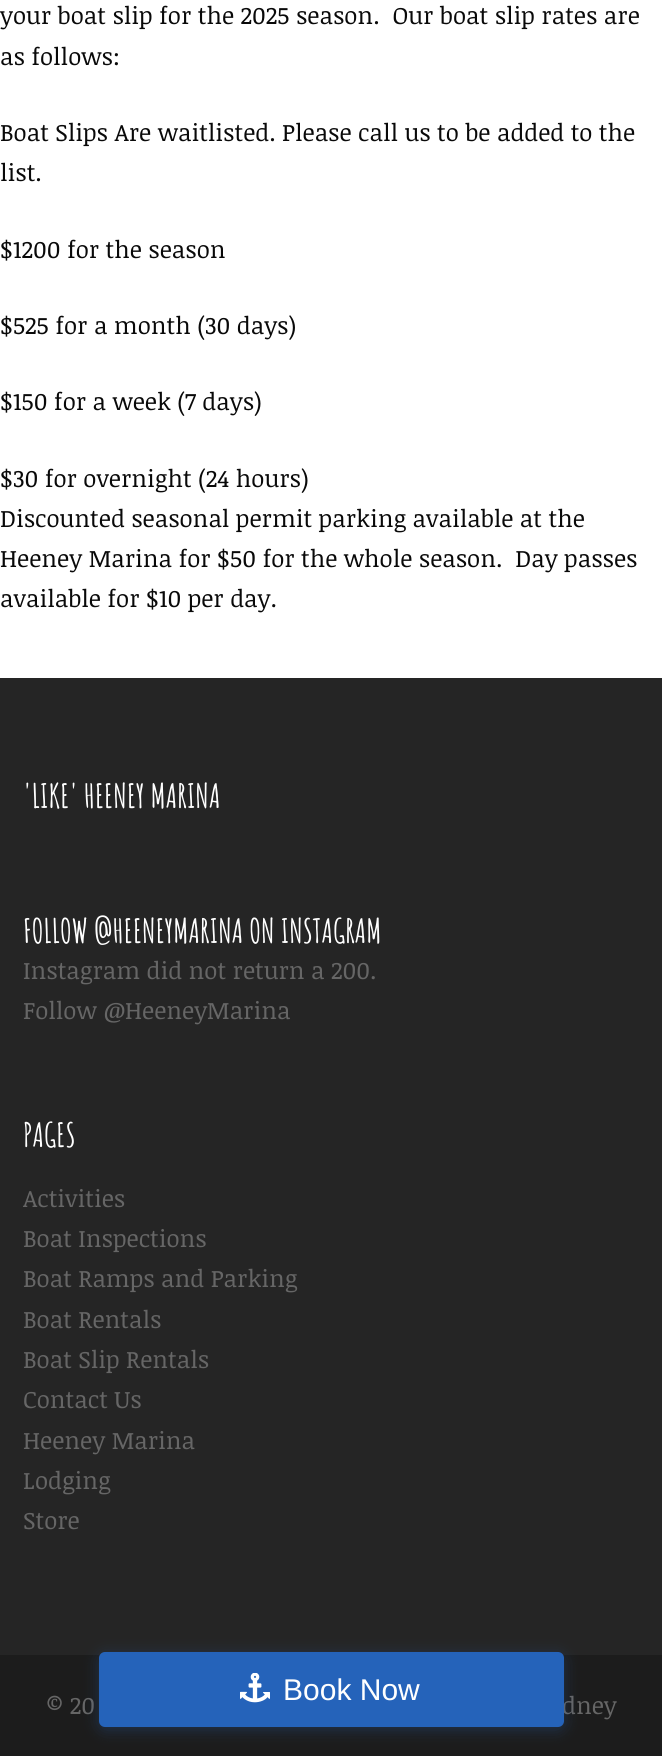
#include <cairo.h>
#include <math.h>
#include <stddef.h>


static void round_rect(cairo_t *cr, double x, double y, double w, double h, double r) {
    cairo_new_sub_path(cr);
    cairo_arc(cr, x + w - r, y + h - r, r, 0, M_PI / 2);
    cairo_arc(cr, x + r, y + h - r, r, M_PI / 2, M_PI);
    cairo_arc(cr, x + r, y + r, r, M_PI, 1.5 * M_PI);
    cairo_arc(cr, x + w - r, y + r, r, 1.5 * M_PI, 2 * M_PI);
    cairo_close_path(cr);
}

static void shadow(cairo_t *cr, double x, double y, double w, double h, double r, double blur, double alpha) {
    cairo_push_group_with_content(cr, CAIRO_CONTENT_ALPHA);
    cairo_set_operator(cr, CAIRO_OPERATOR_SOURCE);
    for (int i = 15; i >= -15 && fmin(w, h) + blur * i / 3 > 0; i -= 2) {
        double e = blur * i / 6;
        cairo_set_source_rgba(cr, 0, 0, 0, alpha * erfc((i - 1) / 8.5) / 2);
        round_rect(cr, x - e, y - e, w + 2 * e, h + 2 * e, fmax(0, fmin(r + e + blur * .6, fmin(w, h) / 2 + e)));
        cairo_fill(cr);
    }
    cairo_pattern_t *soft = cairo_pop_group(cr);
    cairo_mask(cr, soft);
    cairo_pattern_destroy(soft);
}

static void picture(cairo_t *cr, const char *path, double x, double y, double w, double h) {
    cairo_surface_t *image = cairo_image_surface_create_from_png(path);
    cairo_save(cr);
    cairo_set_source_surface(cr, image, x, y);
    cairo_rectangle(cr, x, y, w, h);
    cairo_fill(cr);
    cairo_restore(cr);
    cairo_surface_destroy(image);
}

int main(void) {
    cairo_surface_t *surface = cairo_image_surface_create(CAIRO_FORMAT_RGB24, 662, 1756);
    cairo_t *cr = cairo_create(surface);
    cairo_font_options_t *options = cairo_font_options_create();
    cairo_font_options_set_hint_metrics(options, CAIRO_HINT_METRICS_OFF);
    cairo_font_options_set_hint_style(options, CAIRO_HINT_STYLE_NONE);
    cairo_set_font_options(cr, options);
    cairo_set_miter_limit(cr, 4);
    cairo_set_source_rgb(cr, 1, 1, 1);
    cairo_paint(cr);
    cairo_select_font_face(cr, "Noticia Text", CAIRO_FONT_SLANT_NORMAL, CAIRO_FONT_WEIGHT_NORMAL);
    cairo_set_font_size(cr, 24);
    cairo_set_source_rgb(cr, 0.039, 0.039, 0.039);
    cairo_move_to(cr, 0, 24);
    cairo_show_text(cr, "your boat slip for the 2025 season.  Our boat slip rates are");
    cairo_move_to(cr, 0, 65);
    cairo_show_text(cr, "as follows:");
    cairo_move_to(cr, 0, 141);
    cairo_show_text(cr, "Boat Slips Are waitlisted. Please call us to be added to the");
    cairo_move_to(cr, 0, 181);
    cairo_show_text(cr, "list.");
    cairo_move_to(cr, 0, 258);
    cairo_show_text(cr, "$1200 for the season");
    cairo_move_to(cr, 0, 334);
    cairo_show_text(cr, "$525 for a month (30 days)");
    cairo_move_to(cr, 0, 410);
    cairo_show_text(cr, "$150 for a week (7 days)");
    cairo_move_to(cr, 0, 487);
    cairo_show_text(cr, "$30 for overnight (24 hours)");
    cairo_move_to(cr, 0, 527);
    cairo_show_text(cr, "Discounted seasonal permit parking available at the");
    cairo_move_to(cr, 0, 567);
    cairo_show_text(cr, "Heeney Marina for $50 for the whole season.  Day passes");
    cairo_move_to(cr, 0, 607);
    cairo_show_text(cr, "available for $10 per day.");
    cairo_set_source_rgb(cr, 0.145, 0.145, 0.145);
    cairo_rectangle(cr, 0, 678, 662, 977);
    cairo_fill(cr);
    cairo_select_font_face(cr, "Amatic SC", CAIRO_FONT_SLANT_NORMAL, CAIRO_FONT_WEIGHT_BOLD);
    cairo_set_font_size(cr, 33);
    cairo_set_source_rgb(cr, 1, 1, 1);
    cairo_move_to(cr, 23, 808);
    cairo_show_text(cr, "'LIKE' HEENEY MARINA");
    cairo_move_to(cr, 23, 943);
    cairo_show_text(cr, "FOLLOW @HEENEYMARINA ON INSTAGRAM");
    cairo_select_font_face(cr, "Noticia Text", CAIRO_FONT_SLANT_NORMAL, CAIRO_FONT_WEIGHT_NORMAL);
    cairo_set_font_size(cr, 24);
    cairo_set_source_rgb(cr, 0.4, 0.4, 0.4);
    cairo_move_to(cr, 23, 979);
    cairo_show_text(cr, "Instagram did not return a 200.");
    cairo_move_to(cr, 23, 1019);
    cairo_show_text(cr, "Follow @HeeneyMarina");
    cairo_select_font_face(cr, "Amatic SC", CAIRO_FONT_SLANT_NORMAL, CAIRO_FONT_WEIGHT_BOLD);
    cairo_set_font_size(cr, 33);
    cairo_set_source_rgb(cr, 1, 1, 1);
    cairo_move_to(cr, 23, 1147);
    cairo_show_text(cr, "PAGES");
    cairo_select_font_face(cr, "Noticia Text", CAIRO_FONT_SLANT_NORMAL, CAIRO_FONT_WEIGHT_NORMAL);
    cairo_set_font_size(cr, 24);
    cairo_set_source_rgb(cr, 0.4, 0.4, 0.4);
    cairo_move_to(cr, 23, 1207);
    cairo_show_text(cr, "Activities");
    cairo_move_to(cr, 23, 1247);
    cairo_show_text(cr, "Boat Inspections");
    cairo_move_to(cr, 23, 1287);
    cairo_show_text(cr, "Boat Ramps and Parking");
    cairo_move_to(cr, 23, 1328);
    cairo_show_text(cr, "Boat Rentals");
    cairo_move_to(cr, 23, 1368);
    cairo_show_text(cr, "Boat Slip Rentals");
    cairo_move_to(cr, 23, 1408);
    cairo_show_text(cr, "Contact Us");
    cairo_move_to(cr, 23, 1449);
    cairo_show_text(cr, "Heeney Marina");
    cairo_move_to(cr, 23, 1489);
    cairo_show_text(cr, "Lodging");
    cairo_move_to(cr, 23, 1529);
    cairo_show_text(cr, "Store");
    cairo_set_source_rgb(cr, 0.11, 0.11, 0.11);
    cairo_rectangle(cr, 0, 1655, 662, 101);
    cairo_fill(cr);
    cairo_set_source_rgb(cr, 0.4, 0.4, 0.4);
    cairo_move_to(cr, 46, 1714);
    cairo_show_text(cr, "© 20");
    cairo_move_to(cr, 562, 1714);
    cairo_show_text(cr, "dney");
    cairo_set_source_rgb(cr, 0.145, 0.388, 0.729);
    shadow(cr, 99, 1655, 465, 75, 6, 7.5, 0.3);
    cairo_set_source_rgb(cr, 0.145, 0.388, 0.729);
    round_rect(cr, 100, 1653, 463, 73, 5);
    cairo_fill_preserve(cr);
    cairo_stroke(cr);
    picture(cr, "img1.png", 240, 1673, 30, 30);
    cairo_select_font_face(cr, "Liberation Sans", CAIRO_FONT_SLANT_NORMAL, CAIRO_FONT_WEIGHT_NORMAL);
    cairo_set_font_size(cr, 30);
    cairo_set_source_rgb(cr, 1, 1, 1);
    cairo_move_to(cr, 283, 1700);
    cairo_show_text(cr, "Book Now");
    cairo_surface_write_to_png(surface, "page.png");
    cairo_font_options_destroy(options);
    cairo_destroy(cr);
    cairo_surface_destroy(surface);
    return 0;
}
